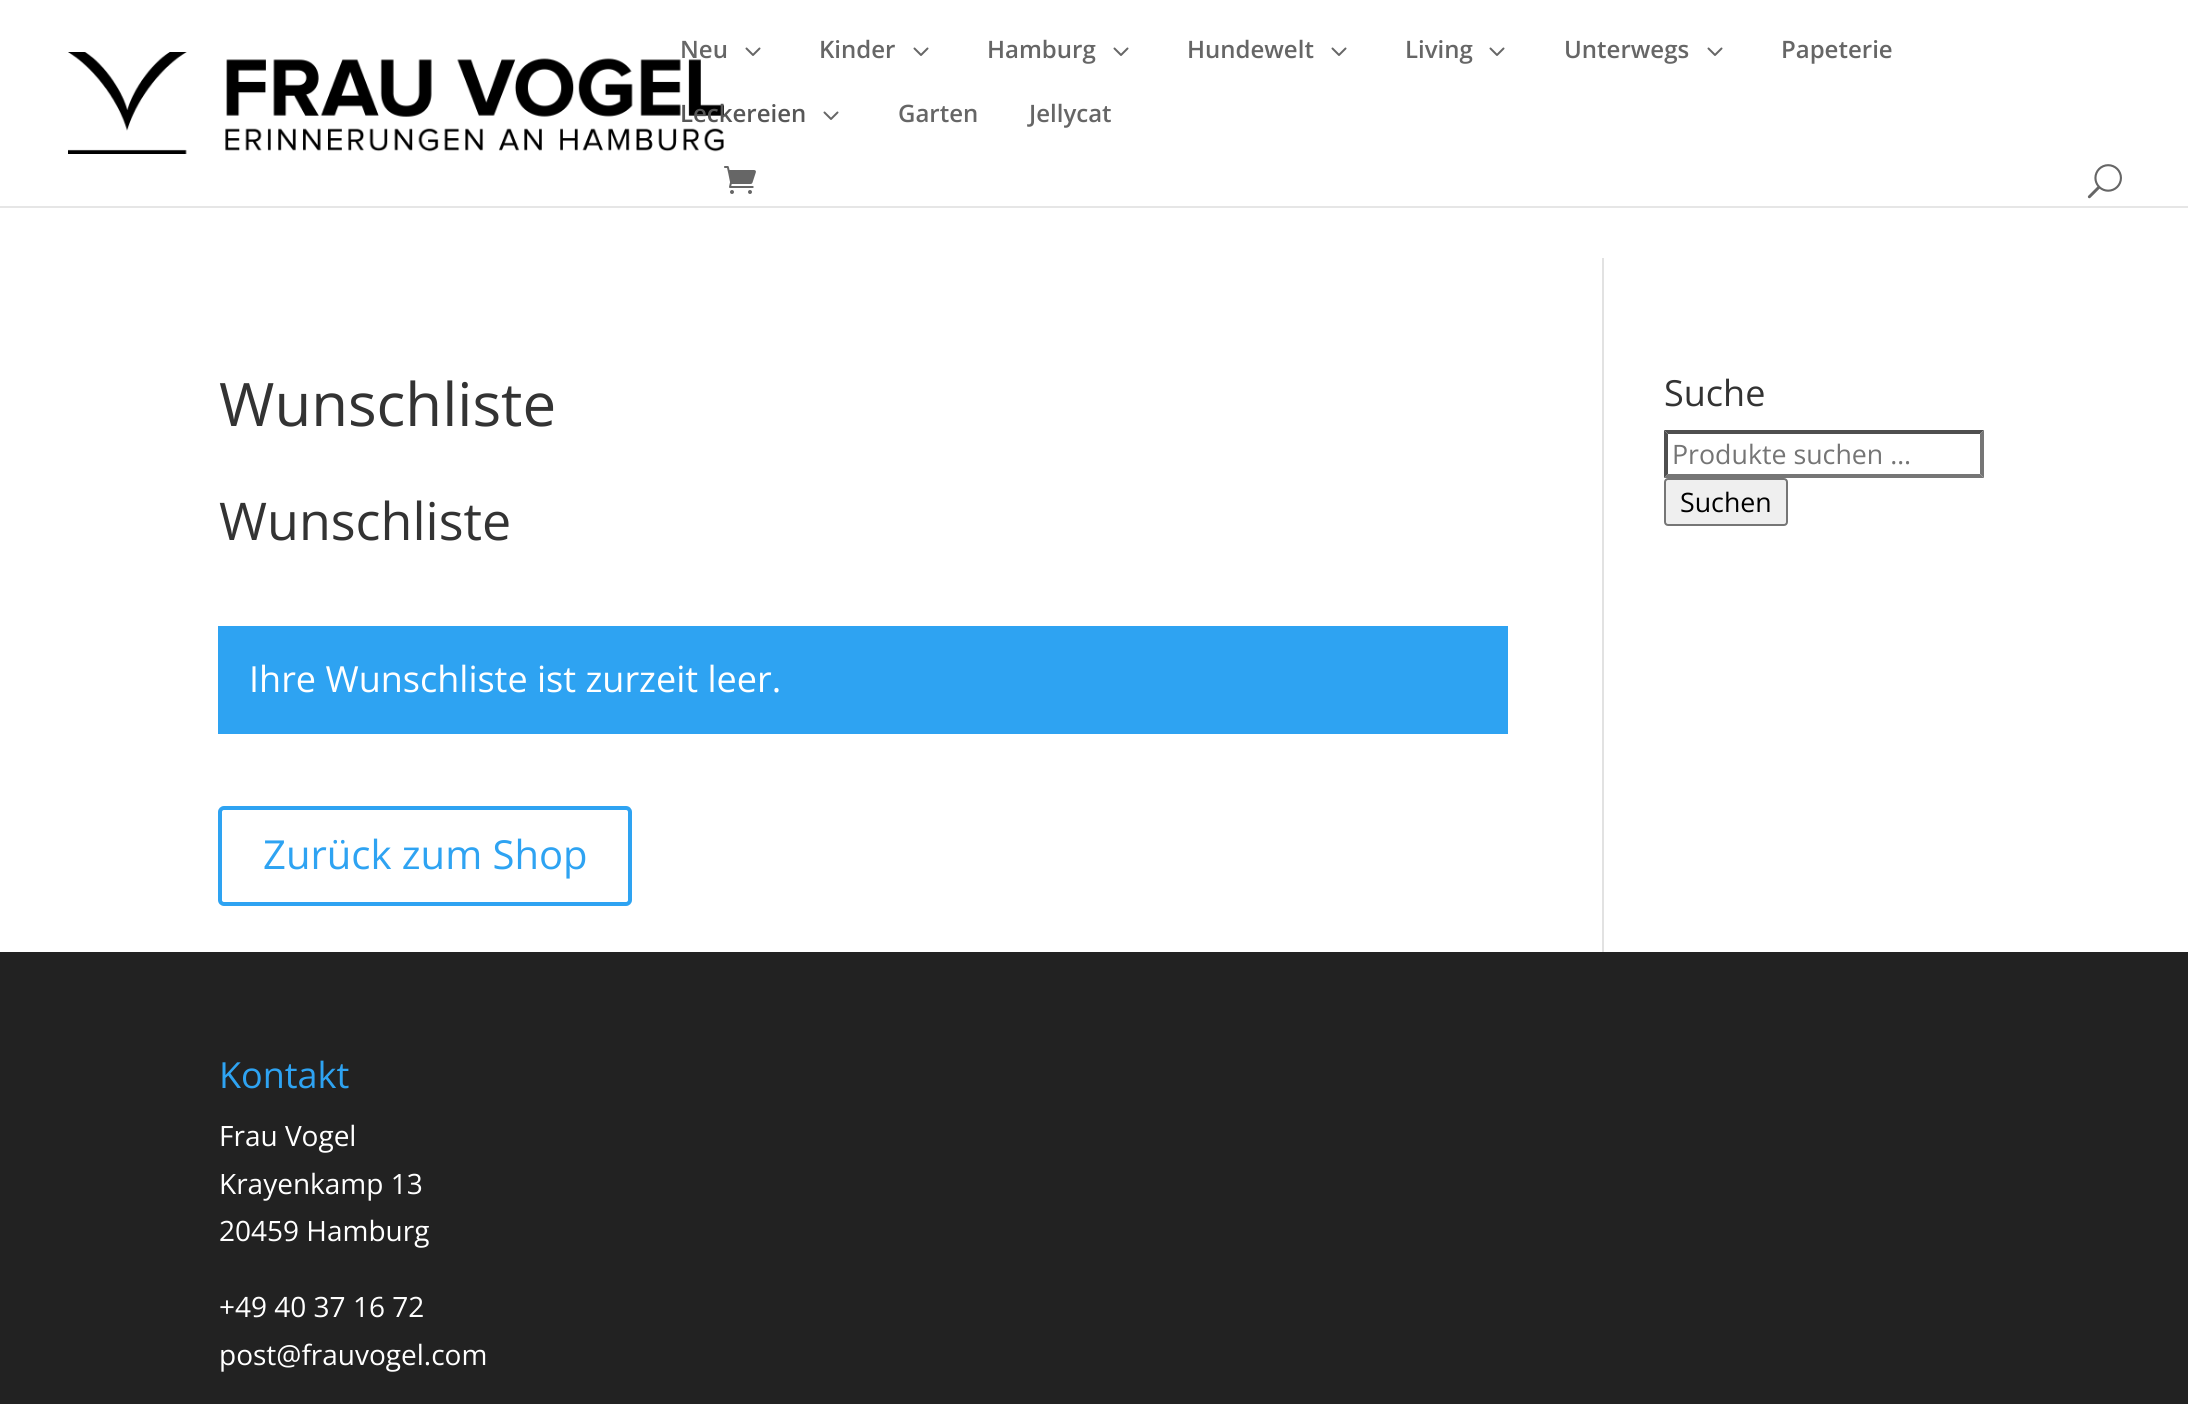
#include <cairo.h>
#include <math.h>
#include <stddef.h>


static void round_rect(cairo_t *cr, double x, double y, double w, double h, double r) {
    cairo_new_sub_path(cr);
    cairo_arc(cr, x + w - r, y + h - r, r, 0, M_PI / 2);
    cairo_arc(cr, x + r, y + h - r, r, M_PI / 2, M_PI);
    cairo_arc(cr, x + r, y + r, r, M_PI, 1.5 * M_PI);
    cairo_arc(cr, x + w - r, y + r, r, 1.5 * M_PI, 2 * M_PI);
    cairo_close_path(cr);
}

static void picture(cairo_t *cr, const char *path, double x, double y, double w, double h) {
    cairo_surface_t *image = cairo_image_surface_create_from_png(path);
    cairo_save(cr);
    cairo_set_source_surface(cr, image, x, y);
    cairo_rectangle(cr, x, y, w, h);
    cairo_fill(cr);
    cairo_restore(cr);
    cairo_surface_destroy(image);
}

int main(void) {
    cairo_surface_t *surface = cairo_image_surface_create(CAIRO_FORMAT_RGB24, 2188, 1404);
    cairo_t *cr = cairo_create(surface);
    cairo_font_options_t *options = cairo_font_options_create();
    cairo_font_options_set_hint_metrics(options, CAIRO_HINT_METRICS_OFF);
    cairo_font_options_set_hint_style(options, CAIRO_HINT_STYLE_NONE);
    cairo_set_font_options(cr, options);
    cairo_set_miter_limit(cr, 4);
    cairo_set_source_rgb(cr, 1, 1, 1);
    cairo_paint(cr);
    cairo_set_source_rgb(cr, 0.902, 0.902, 0.902);
    cairo_rectangle(cr, 0, 206, 2188, 2);
    cairo_fill(cr);
    picture(cr, "img1.png", 68, 52, 656, 102);
    cairo_select_font_face(cr, "Open Sans SemiBold", CAIRO_FONT_SLANT_NORMAL, CAIRO_FONT_WEIGHT_NORMAL);
    cairo_set_font_size(cr, 24);
    cairo_set_source_rgb(cr, 0.4, 0.4, 0.4);
    cairo_move_to(cr, 680, 58);
    cairo_show_text(cr, "Neu");
    picture(cr, "img2.png", 745, 47, 16, 9);
    cairo_move_to(cr, 819, 58);
    cairo_show_text(cr, "Kinder");
    picture(cr, "img2.png", 913, 47, 16, 9);
    cairo_move_to(cr, 987, 58);
    cairo_show_text(cr, "Hamburg");
    picture(cr, "img2.png", 1113, 47, 16, 9);
    cairo_move_to(cr, 1187, 58);
    cairo_show_text(cr, "Hundewelt");
    picture(cr, "img2.png", 1331, 47, 16, 9);
    cairo_move_to(cr, 1405, 58);
    cairo_show_text(cr, "Living");
    picture(cr, "img2.png", 1489, 47, 16, 9);
    cairo_move_to(cr, 1564, 58);
    cairo_show_text(cr, "Unterwegs");
    picture(cr, "img2.png", 1707, 47, 16, 9);
    cairo_move_to(cr, 1781, 58);
    cairo_show_text(cr, "Papeterie");
    cairo_set_source_rgb(cr, 0.341, 0.341, 0.341);
    cairo_move_to(cr, 680, 122);
    cairo_show_text(cr, "Leckereien");
    picture(cr, "img2.png", 823, 111, 16, 9);
    cairo_set_source_rgb(cr, 0.4, 0.4, 0.4);
    cairo_move_to(cr, 898, 122);
    cairo_show_text(cr, "Garten");
    cairo_move_to(cr, 1029, 122);
    cairo_show_text(cr, "Jellycat");
    picture(cr, "img3.png", 724, 166, 32, 28);
    picture(cr, "img4.png", 2087, 164, 35, 35);
    cairo_set_source_rgb(cr, 0.886, 0.886, 0.886);
    cairo_rectangle(cr, 1602, 258, 2, 694);
    cairo_fill(cr);
    cairo_select_font_face(cr, "Open Sans", CAIRO_FONT_SLANT_NORMAL, CAIRO_FONT_WEIGHT_NORMAL);
    cairo_set_font_size(cr, 60);
    cairo_set_source_rgb(cr, 0.2, 0.2, 0.2);
    cairo_move_to(cr, 219, 426);
    cairo_show_text(cr, "Wunschliste");
    cairo_set_font_size(cr, 52);
    cairo_move_to(cr, 219, 540);
    cairo_show_text(cr, "Wunschliste");
    cairo_set_source_rgb(cr, 0.18, 0.639, 0.949);
    cairo_rectangle(cr, 218, 626, 1290, 108);
    cairo_fill(cr);
    cairo_set_font_size(cr, 36);
    cairo_set_source_rgb(cr, 1, 1, 1);
    cairo_move_to(cr, 249, 692);
    cairo_show_text(cr, "Ihre Wunschliste ist zurzeit leer.");
    round_rect(cr, 220, 808, 410, 96, 4);
    cairo_set_source_rgb(cr, 0.18, 0.639, 0.949);
    cairo_set_line_width(cr, 4);
    cairo_stroke(cr);
    cairo_set_font_size(cr, 40);
    cairo_move_to(cr, 263, 869);
    cairo_show_text(cr, "Zurück zum Shop");
    cairo_set_font_size(cr, 36);
    cairo_set_source_rgb(cr, 0.2, 0.2, 0.2);
    cairo_move_to(cr, 1664, 406);
    cairo_show_text(cr, "Suche");
    cairo_set_source_rgb(cr, 0.31, 0.31, 0.31);
    cairo_new_path(cr);
    cairo_move_to(cr, 1664, 430);
    cairo_line_to(cr, 1984, 430);
    cairo_line_to(cr, 1980, 434);
    cairo_line_to(cr, 1668, 434);
    cairo_close_path(cr);
    cairo_fill(cr);
    cairo_set_source_rgb(cr, 0.463, 0.463, 0.463);
    cairo_new_path(cr);
    cairo_move_to(cr, 1984, 430);
    cairo_line_to(cr, 1984, 478);
    cairo_line_to(cr, 1980, 474);
    cairo_line_to(cr, 1980, 434);
    cairo_close_path(cr);
    cairo_fill(cr);
    cairo_new_path(cr);
    cairo_move_to(cr, 1984, 478);
    cairo_line_to(cr, 1664, 478);
    cairo_line_to(cr, 1668, 474);
    cairo_line_to(cr, 1980, 474);
    cairo_close_path(cr);
    cairo_fill(cr);
    cairo_set_source_rgb(cr, 0.31, 0.31, 0.31);
    cairo_new_path(cr);
    cairo_move_to(cr, 1664, 478);
    cairo_line_to(cr, 1664, 430);
    cairo_line_to(cr, 1668, 434);
    cairo_line_to(cr, 1668, 474);
    cairo_close_path(cr);
    cairo_fill(cr);
    cairo_set_font_size(cr, 26.75);
    cairo_set_source_rgb(cr, 0.459, 0.459, 0.459);
    cairo_move_to(cr, 1672, 464);
    cairo_show_text(cr, "Produkte suchen …");
    cairo_set_source_rgb(cr, 0.937, 0.937, 0.937);
    round_rect(cr, 1665, 479, 122, 46, 3);
    cairo_fill_preserve(cr);
    cairo_set_source_rgb(cr, 0.463, 0.463, 0.463);
    cairo_set_line_width(cr, 2);
    cairo_stroke(cr);
    cairo_set_source_rgb(cr, 0, 0, 0);
    cairo_move_to(cr, 1680, 512);
    cairo_show_text(cr, "Suchen");
    cairo_set_source_rgb(cr, 0.133, 0.133, 0.133);
    cairo_rectangle(cr, 0, 952, 2188, 452);
    cairo_fill(cr);
    cairo_set_font_size(cr, 36);
    cairo_set_source_rgb(cr, 0.18, 0.639, 0.949);
    cairo_move_to(cr, 219, 1088);
    cairo_show_text(cr, "Kontakt");
    cairo_set_font_size(cr, 28);
    cairo_set_source_rgb(cr, 1, 1, 1);
    cairo_move_to(cr, 219, 1146);
    cairo_show_text(cr, "Frau Vogel");
    cairo_move_to(cr, 219, 1194);
    cairo_show_text(cr, "Krayenkamp 13");
    cairo_move_to(cr, 219, 1241);
    cairo_show_text(cr, "20459 Hamburg");
    cairo_move_to(cr, 219, 1317);
    cairo_show_text(cr, "+49 40 37 16 72");
    cairo_move_to(cr, 219, 1365);
    cairo_show_text(cr, "post@frauvogel.com");
    cairo_surface_write_to_png(surface, "page.png");
    cairo_font_options_destroy(options);
    cairo_destroy(cr);
    cairo_surface_destroy(surface);
    return 0;
}
